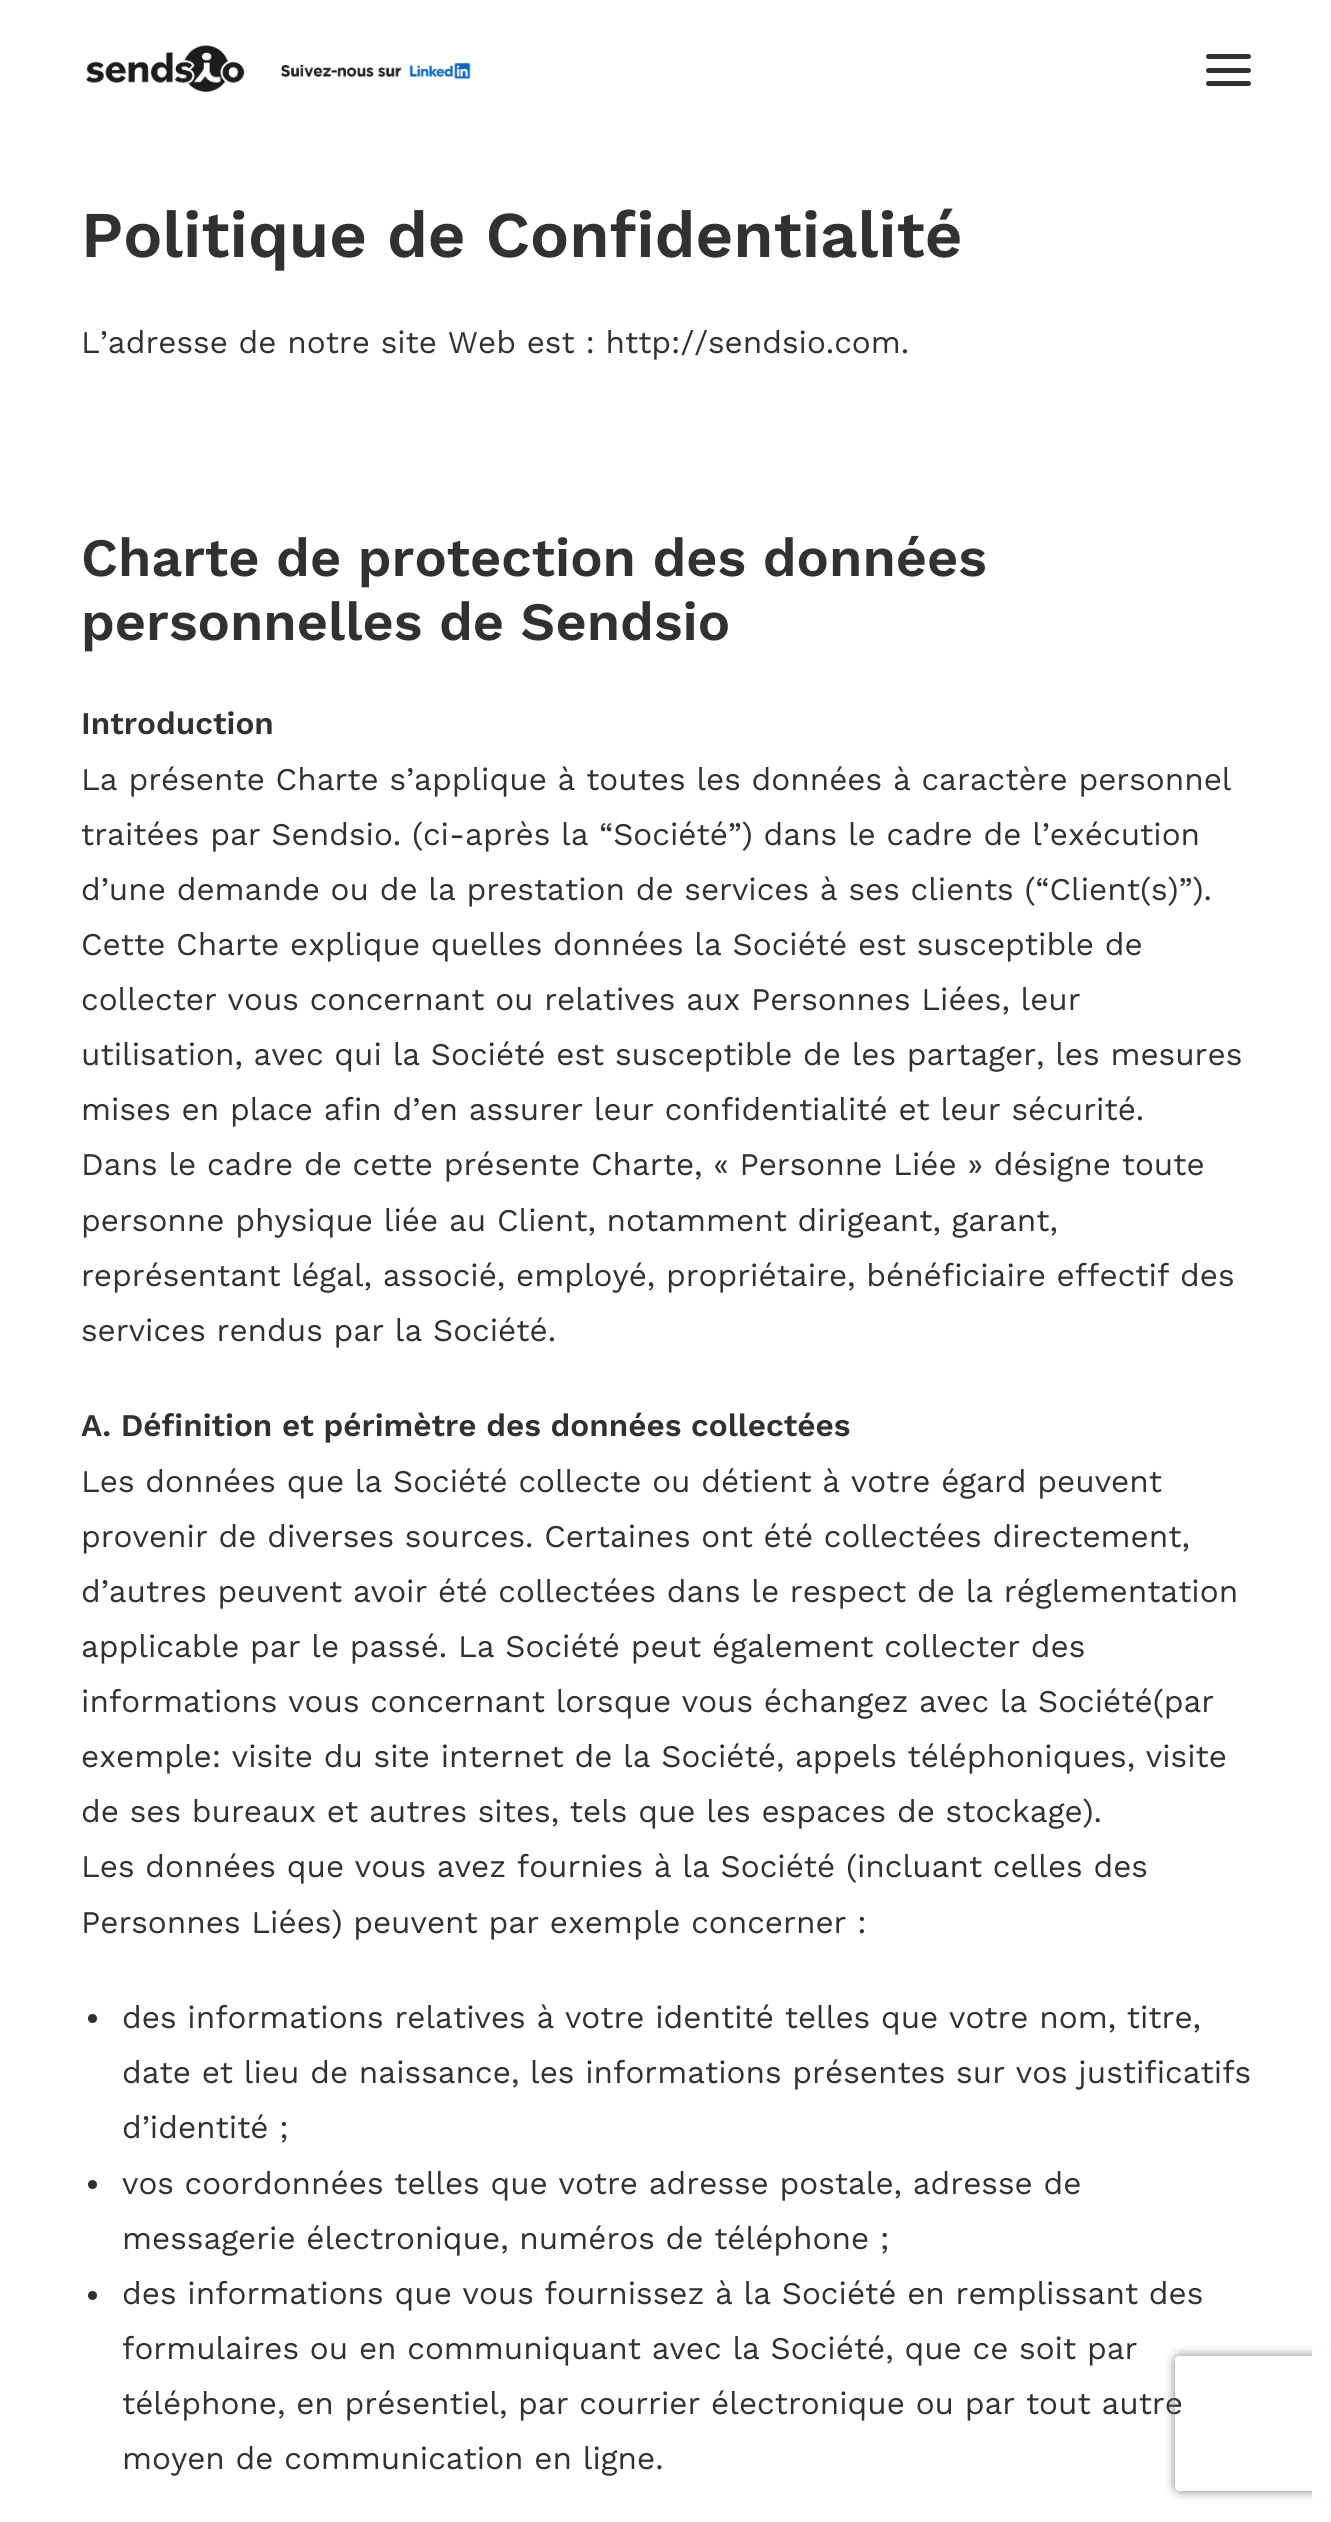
#include <cairo.h>
#include <math.h>
#include <stddef.h>


static void round_rect(cairo_t *cr, double x, double y, double w, double h, double r) {
    cairo_new_sub_path(cr);
    cairo_arc(cr, x + w - r, y + h - r, r, 0, M_PI / 2);
    cairo_arc(cr, x + r, y + h - r, r, M_PI / 2, M_PI);
    cairo_arc(cr, x + r, y + r, r, M_PI, 1.5 * M_PI);
    cairo_arc(cr, x + w - r, y + r, r, 1.5 * M_PI, 2 * M_PI);
    cairo_close_path(cr);
}

static void shadow(cairo_t *cr, double x, double y, double w, double h, double r, double blur, double alpha) {
    cairo_push_group_with_content(cr, CAIRO_CONTENT_ALPHA);
    cairo_set_operator(cr, CAIRO_OPERATOR_SOURCE);
    for (int i = 15; i >= -15 && fmin(w, h) + blur * i / 3 > 0; i -= 2) {
        double e = blur * i / 6;
        cairo_set_source_rgba(cr, 0, 0, 0, alpha * erfc((i - 1) / 8.5) / 2);
        round_rect(cr, x - e, y - e, w + 2 * e, h + 2 * e, fmax(0, fmin(r + e + blur * .6, fmin(w, h) / 2 + e)));
        cairo_fill(cr);
    }
    cairo_pattern_t *soft = cairo_pop_group(cr);
    cairo_mask(cr, soft);
    cairo_pattern_destroy(soft);
}

static void picture(cairo_t *cr, const char *path, double x, double y, double w, double h) {
    cairo_surface_t *image = cairo_image_surface_create_from_png(path);
    cairo_save(cr);
    cairo_set_source_surface(cr, image, x, y);
    cairo_rectangle(cr, x, y, w, h);
    cairo_fill(cr);
    cairo_restore(cr);
    cairo_surface_destroy(image);
}

int main(void) {
    cairo_surface_t *surface = cairo_image_surface_create(CAIRO_FORMAT_RGB24, 1331, 2522);
    cairo_t *cr = cairo_create(surface);
    cairo_font_options_t *options = cairo_font_options_create();
    cairo_font_options_set_hint_metrics(options, CAIRO_HINT_METRICS_OFF);
    cairo_font_options_set_hint_style(options, CAIRO_HINT_STYLE_NONE);
    cairo_set_font_options(cr, options);
    cairo_set_miter_limit(cr, 4);
    cairo_set_source_rgb(cr, 1, 1, 1);
    cairo_paint(cr);
    picture(cr, "img1.png", 86, 45, 385, 47);
    cairo_set_source_rgb(cr, 0.188, 0.192, 0.2);
    round_rect(cr, 1206, 68, 45, 5, 2.5);
    cairo_fill(cr);
    round_rect(cr, 1206, 54, 45, 5, 2.5);
    cairo_fill(cr);
    round_rect(cr, 1206, 81, 45, 5, 2.5);
    cairo_fill(cr);
    cairo_select_font_face(cr, "Work Sans SemiBold", CAIRO_FONT_SLANT_NORMAL, CAIRO_FONT_WEIGHT_NORMAL);
    cairo_set_font_size(cr, 65.25);
    cairo_move_to(cr, 81, 257);
    cairo_show_text(cr, "Politique de Confidentialité");
    cairo_select_font_face(cr, "Work Sans", CAIRO_FONT_SLANT_NORMAL, CAIRO_FONT_WEIGHT_NORMAL);
    cairo_set_font_size(cr, 31.5);
    cairo_move_to(cr, 81, 353);
    cairo_show_text(cr, "L’adresse de notre site Web est : http://sendsio.com.");
    cairo_select_font_face(cr, "Work Sans SemiBold", CAIRO_FONT_SLANT_NORMAL, CAIRO_FONT_WEIGHT_NORMAL);
    cairo_set_font_size(cr, 54);
    cairo_move_to(cr, 81, 576);
    cairo_show_text(cr, "Charte de protection des données");
    cairo_move_to(cr, 81, 640);
    cairo_show_text(cr, "personnelles de Sendsio");
    cairo_set_font_size(cr, 31.5);
    cairo_move_to(cr, 81, 734);
    cairo_show_text(cr, "Introduction");
    cairo_select_font_face(cr, "Work Sans", CAIRO_FONT_SLANT_NORMAL, CAIRO_FONT_WEIGHT_NORMAL);
    cairo_move_to(cr, 81, 790);
    cairo_show_text(cr, "La présente Charte s’applique à toutes les données à caractère personnel");
    cairo_move_to(cr, 81, 845);
    cairo_show_text(cr, "traitées par Sendsio. (ci-après la “Société”) dans le cadre de l’exécution");
    cairo_move_to(cr, 81, 900);
    cairo_show_text(cr, "d’une demande ou de la prestation de services à ses clients (“Client(s)”).");
    cairo_move_to(cr, 81, 955);
    cairo_show_text(cr, "Cette Charte explique quelles données la Société est susceptible de");
    cairo_move_to(cr, 81, 1010);
    cairo_show_text(cr, "collecter vous concernant ou relatives aux Personnes Liées, leur");
    cairo_move_to(cr, 81, 1065);
    cairo_show_text(cr, "utilisation, avec qui la Société est susceptible de les partager, les mesures");
    cairo_move_to(cr, 81, 1120);
    cairo_show_text(cr, "mises en place afin d’en assurer leur confidentialité et leur sécurité.");
    cairo_move_to(cr, 81, 1175);
    cairo_show_text(cr, "Dans le cadre de cette présente Charte, « Personne Liée » désigne toute");
    cairo_move_to(cr, 81, 1231);
    cairo_show_text(cr, "personne physique liée au Client, notamment dirigeant, garant,");
    cairo_move_to(cr, 81, 1286);
    cairo_show_text(cr, "représentant légal, associé, employé, propriétaire, bénéficiaire effectif des");
    cairo_move_to(cr, 81, 1341);
    cairo_show_text(cr, "services rendus par la Société.");
    cairo_select_font_face(cr, "Work Sans SemiBold", CAIRO_FONT_SLANT_NORMAL, CAIRO_FONT_WEIGHT_NORMAL);
    cairo_move_to(cr, 81, 1436);
    cairo_show_text(cr, "A. Définition et périmètre des données collectées");
    cairo_select_font_face(cr, "Work Sans", CAIRO_FONT_SLANT_NORMAL, CAIRO_FONT_WEIGHT_NORMAL);
    cairo_move_to(cr, 81, 1492);
    cairo_show_text(cr, "Les données que la Société collecte ou détient à votre égard peuvent");
    cairo_move_to(cr, 81, 1547);
    cairo_show_text(cr, "provenir de diverses sources. Certaines ont été collectées directement,");
    cairo_move_to(cr, 81, 1602);
    cairo_show_text(cr, "d’autres peuvent avoir été collectées dans le respect de la réglementation");
    cairo_move_to(cr, 81, 1657);
    cairo_show_text(cr, "applicable par le passé. La Société peut également collecter des");
    cairo_move_to(cr, 81, 1712);
    cairo_show_text(cr, "informations vous concernant lorsque vous échangez avec la Société(par");
    cairo_move_to(cr, 81, 1767);
    cairo_show_text(cr, "exemple: visite du site internet de la Société, appels téléphoniques, visite");
    cairo_move_to(cr, 81, 1822);
    cairo_show_text(cr, "de ses bureaux et autres sites, tels que les espaces de stockage).");
    cairo_move_to(cr, 81, 1877);
    cairo_show_text(cr, "Les données que vous avez fournies à la Société (incluant celles des");
    cairo_move_to(cr, 81, 1933);
    cairo_show_text(cr, "Personnes Liées) peuvent par exemple concerner :");
    cairo_new_path(cr);
    cairo_arc(cr, 92.5, 2018.5, 4.5, 0, 2 * M_PI);
    cairo_fill(cr);
    cairo_move_to(cr, 122, 2028);
    cairo_show_text(cr, "des informations relatives à votre identité telles que votre nom, titre,");
    cairo_move_to(cr, 122, 2083);
    cairo_show_text(cr, "date et lieu de naissance, les informations présentes sur vos justificatifs");
    cairo_move_to(cr, 122, 2138);
    cairo_show_text(cr, "d’identité ;");
    cairo_new_path(cr);
    cairo_arc(cr, 92.5, 2184.5, 4.5, 0, 2 * M_PI);
    cairo_fill(cr);
    cairo_move_to(cr, 122, 2194);
    cairo_show_text(cr, "vos coordonnées telles que votre adresse postale, adresse de");
    cairo_move_to(cr, 122, 2249);
    cairo_show_text(cr, "messagerie électronique, numéros de téléphone ;");
    cairo_new_path(cr);
    cairo_arc(cr, 92.5, 2295.5, 4.5, 0, 2 * M_PI);
    cairo_fill(cr);
    cairo_move_to(cr, 122, 2304);
    cairo_show_text(cr, "des informations que vous fournissez à la Société en remplissant des");
    cairo_move_to(cr, 122, 2359);
    cairo_show_text(cr, "formulaires ou en communiquant avec la Société, que ce soit par");
    cairo_move_to(cr, 122, 2414);
    cairo_show_text(cr, "téléphone, en présentiel, par courrier électronique ou par tout autre");
    cairo_move_to(cr, 122, 2469);
    cairo_show_text(cr, "moyen de communication en ligne.");
    cairo_save(cr);
    cairo_set_fill_rule(cr, CAIRO_FILL_RULE_EVEN_ODD);
    cairo_new_path(cr);
    cairo_move_to(cr, 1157, 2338);
    cairo_line_to(cr, 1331, 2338);
    cairo_line_to(cr, 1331, 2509);
    cairo_line_to(cr, 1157, 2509);
    cairo_close_path(cr);
    cairo_move_to(cr, 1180, 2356);
    cairo_line_to(cr, 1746, 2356);
    cairo_curve_to(cr, 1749, 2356, 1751, 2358, 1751, 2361);
    cairo_line_to(cr, 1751, 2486);
    cairo_curve_to(cr, 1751, 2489, 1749, 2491, 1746, 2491);
    cairo_line_to(cr, 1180, 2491);
    cairo_curve_to(cr, 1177, 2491, 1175, 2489, 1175, 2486);
    cairo_line_to(cr, 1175, 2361);
    cairo_curve_to(cr, 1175, 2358, 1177, 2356, 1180, 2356);
    cairo_close_path(cr);
    cairo_clip(cr);
    cairo_set_source_rgb(cr, 0.502, 0.502, 0.502);
    shadow(cr, 1175, 2356, 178, 135, 5, 5.5, 1);
    cairo_restore(cr);
    cairo_set_source_rgb(cr, 1, 1, 1);
    cairo_rectangle(cr, 1312, 2345, 19, 157);
    cairo_fill(cr);
    cairo_surface_write_to_png(surface, "page.png");
    cairo_font_options_destroy(options);
    cairo_destroy(cr);
    cairo_surface_destroy(surface);
    return 0;
}
